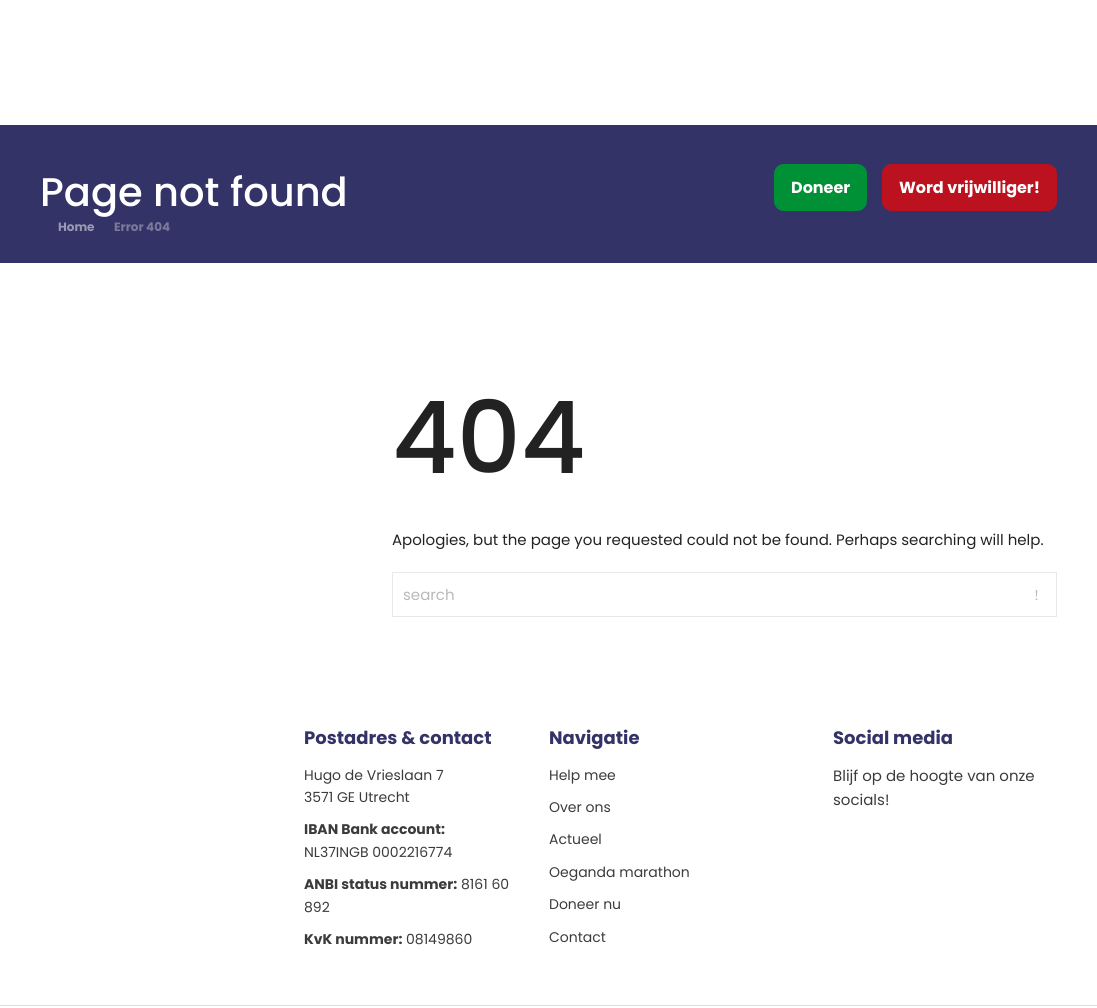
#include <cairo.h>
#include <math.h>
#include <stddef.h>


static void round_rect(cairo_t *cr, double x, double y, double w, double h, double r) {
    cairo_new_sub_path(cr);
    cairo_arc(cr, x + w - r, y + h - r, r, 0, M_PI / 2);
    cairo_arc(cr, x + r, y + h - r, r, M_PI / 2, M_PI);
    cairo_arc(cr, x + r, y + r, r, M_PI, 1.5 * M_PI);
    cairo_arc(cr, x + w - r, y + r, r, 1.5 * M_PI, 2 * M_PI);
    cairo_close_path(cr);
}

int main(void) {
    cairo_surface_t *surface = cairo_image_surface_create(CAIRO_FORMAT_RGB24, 1097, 1008);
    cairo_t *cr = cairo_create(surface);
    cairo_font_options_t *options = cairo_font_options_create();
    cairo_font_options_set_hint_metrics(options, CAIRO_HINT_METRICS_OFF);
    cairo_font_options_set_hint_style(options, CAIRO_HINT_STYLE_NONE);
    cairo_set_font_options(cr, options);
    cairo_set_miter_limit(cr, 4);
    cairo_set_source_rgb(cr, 1, 1, 1);
    cairo_paint(cr);
    cairo_set_source_rgb(cr, 0.2, 0.2, 0.404);
    cairo_rectangle(cr, 0, 125, 1097, 138);
    cairo_fill(cr);
    cairo_select_font_face(cr, "Poppins Medium", CAIRO_FONT_SLANT_NORMAL, CAIRO_FONT_WEIGHT_NORMAL);
    cairo_set_font_size(cr, 40);
    cairo_set_source_rgb(cr, 1, 1, 1);
    cairo_move_to(cr, 40, 206);
    cairo_show_text(cr, "Page not found");
    cairo_select_font_face(cr, "Poppins", CAIRO_FONT_SLANT_NORMAL, CAIRO_FONT_WEIGHT_BOLD);
    cairo_set_font_size(cr, 12);
    cairo_set_source_rgb(cr, 0.6, 0.6, 0.702);
    cairo_move_to(cr, 58, 231);
    cairo_show_text(cr, "Home");
    cairo_set_source_rgb(cr, 0.478, 0.478, 0.612);
    cairo_move_to(cr, 114, 231);
    cairo_show_text(cr, "Error 404");
    cairo_select_font_face(cr, "Poppins Medium", CAIRO_FONT_SLANT_NORMAL, CAIRO_FONT_WEIGHT_NORMAL);
    cairo_set_font_size(cr, 100);
    cairo_set_source_rgb(cr, 0.133, 0.133, 0.133);
    cairo_move_to(cr, 392, 473);
    cairo_show_text(cr, "404");
    cairo_select_font_face(cr, "Poppins", CAIRO_FONT_SLANT_NORMAL, CAIRO_FONT_WEIGHT_NORMAL);
    cairo_set_font_size(cr, 15);
    cairo_move_to(cr, 392, 545);
    cairo_show_text(cr, "Apologies, but the page you requested could not be found. Perhaps searching will help.");
    cairo_rectangle(cr, 392.5, 572.5, 664, 44);
    cairo_set_source_rgb(cr, 0.91, 0.91, 0.91);
    cairo_set_line_width(cr, 1);
    cairo_stroke(cr);
    cairo_set_source_rgb(cr, 0.725, 0.725, 0.725);
    cairo_move_to(cr, 403, 600);
    cairo_show_text(cr, "search");
    cairo_select_font_face(cr, "Liberation Serif", CAIRO_FONT_SLANT_NORMAL, CAIRO_FONT_WEIGHT_NORMAL);
    cairo_move_to(cr, 1034, 600);
    cairo_show_text(cr, "!");
    cairo_set_source_rgb(cr, 0, 0.565, 0.212);
    round_rect(cr, 774, 164, 93, 47, 10);
    cairo_fill(cr);
    cairo_select_font_face(cr, "Poppins", CAIRO_FONT_SLANT_NORMAL, CAIRO_FONT_WEIGHT_BOLD);
    cairo_set_font_size(cr, 16);
    cairo_set_source_rgb(cr, 1, 1, 1);
    cairo_move_to(cr, 791, 193);
    cairo_show_text(cr, "Doneer");
    cairo_set_source_rgb(cr, 0.737, 0.071, 0.125);
    round_rect(cr, 882, 164, 175, 47, 10);
    cairo_fill(cr);
    cairo_set_source_rgb(cr, 1, 1, 1);
    cairo_move_to(cr, 899, 193);
    cairo_show_text(cr, "Word vrijwilliger!");
    cairo_set_font_size(cr, 18);
    cairo_set_source_rgb(cr, 0.2, 0.2, 0.404);
    cairo_move_to(cr, 304, 744);
    cairo_show_text(cr, "Postadres & contact");
    cairo_select_font_face(cr, "Poppins", CAIRO_FONT_SLANT_NORMAL, CAIRO_FONT_WEIGHT_NORMAL);
    cairo_set_font_size(cr, 14);
    cairo_set_source_rgb(cr, 0.231, 0.231, 0.231);
    cairo_move_to(cr, 304, 780);
    cairo_show_text(cr, "Hugo de Vrieslaan 7");
    cairo_move_to(cr, 304, 802);
    cairo_show_text(cr, "3571 GE Utrecht");
    cairo_select_font_face(cr, "Poppins", CAIRO_FONT_SLANT_NORMAL, CAIRO_FONT_WEIGHT_BOLD);
    cairo_move_to(cr, 304, 834);
    cairo_show_text(cr, "IBAN Bank account:");
    cairo_select_font_face(cr, "Poppins", CAIRO_FONT_SLANT_NORMAL, CAIRO_FONT_WEIGHT_NORMAL);
    cairo_move_to(cr, 304, 857);
    cairo_show_text(cr, "NL37INGB 0002216774");
    cairo_select_font_face(cr, "Poppins", CAIRO_FONT_SLANT_NORMAL, CAIRO_FONT_WEIGHT_BOLD);
    cairo_move_to(cr, 304, 889);
    cairo_show_text(cr, "ANBI status nummer:");
    cairo_select_font_face(cr, "Poppins", CAIRO_FONT_SLANT_NORMAL, CAIRO_FONT_WEIGHT_NORMAL);
    cairo_move_to(cr, 461, 889);
    cairo_show_text(cr, "8161 60");
    cairo_move_to(cr, 304, 912);
    cairo_show_text(cr, "892");
    cairo_select_font_face(cr, "Poppins", CAIRO_FONT_SLANT_NORMAL, CAIRO_FONT_WEIGHT_BOLD);
    cairo_move_to(cr, 304, 944);
    cairo_show_text(cr, "KvK nummer:");
    cairo_select_font_face(cr, "Poppins", CAIRO_FONT_SLANT_NORMAL, CAIRO_FONT_WEIGHT_NORMAL);
    cairo_move_to(cr, 406, 944);
    cairo_show_text(cr, "08149860");
    cairo_select_font_face(cr, "Poppins", CAIRO_FONT_SLANT_NORMAL, CAIRO_FONT_WEIGHT_BOLD);
    cairo_set_font_size(cr, 18);
    cairo_set_source_rgb(cr, 0.2, 0.2, 0.404);
    cairo_move_to(cr, 549, 744);
    cairo_show_text(cr, "Navigatie");
    cairo_select_font_face(cr, "Poppins", CAIRO_FONT_SLANT_NORMAL, CAIRO_FONT_WEIGHT_NORMAL);
    cairo_set_font_size(cr, 14);
    cairo_set_source_rgb(cr, 0.231, 0.231, 0.231);
    cairo_move_to(cr, 549, 780);
    cairo_show_text(cr, "Help mee");
    cairo_move_to(cr, 549, 812);
    cairo_show_text(cr, "Over ons");
    cairo_move_to(cr, 549, 844);
    cairo_show_text(cr, "Actueel");
    cairo_move_to(cr, 549, 877);
    cairo_show_text(cr, "Oeganda marathon");
    cairo_move_to(cr, 549, 909);
    cairo_show_text(cr, "Doneer nu");
    cairo_move_to(cr, 549, 942);
    cairo_show_text(cr, "Contact");
    cairo_select_font_face(cr, "Poppins", CAIRO_FONT_SLANT_NORMAL, CAIRO_FONT_WEIGHT_BOLD);
    cairo_set_font_size(cr, 18);
    cairo_set_source_rgb(cr, 0.2, 0.2, 0.404);
    cairo_move_to(cr, 833, 744);
    cairo_show_text(cr, "Social media");
    cairo_select_font_face(cr, "Poppins", CAIRO_FONT_SLANT_NORMAL, CAIRO_FONT_WEIGHT_NORMAL);
    cairo_set_font_size(cr, 15);
    cairo_set_source_rgb(cr, 0.231, 0.231, 0.231);
    cairo_move_to(cr, 833, 781);
    cairo_show_text(cr, "Blijf op de hoogte van onze");
    cairo_move_to(cr, 833, 805);
    cairo_show_text(cr, "socials!");
    cairo_set_source_rgb(cr, 0.867, 0.867, 0.867);
    cairo_rectangle(cr, 0, 1005, 1097, 1);
    cairo_fill(cr);
    cairo_surface_write_to_png(surface, "page.png");
    cairo_font_options_destroy(options);
    cairo_destroy(cr);
    cairo_surface_destroy(surface);
    return 0;
}
